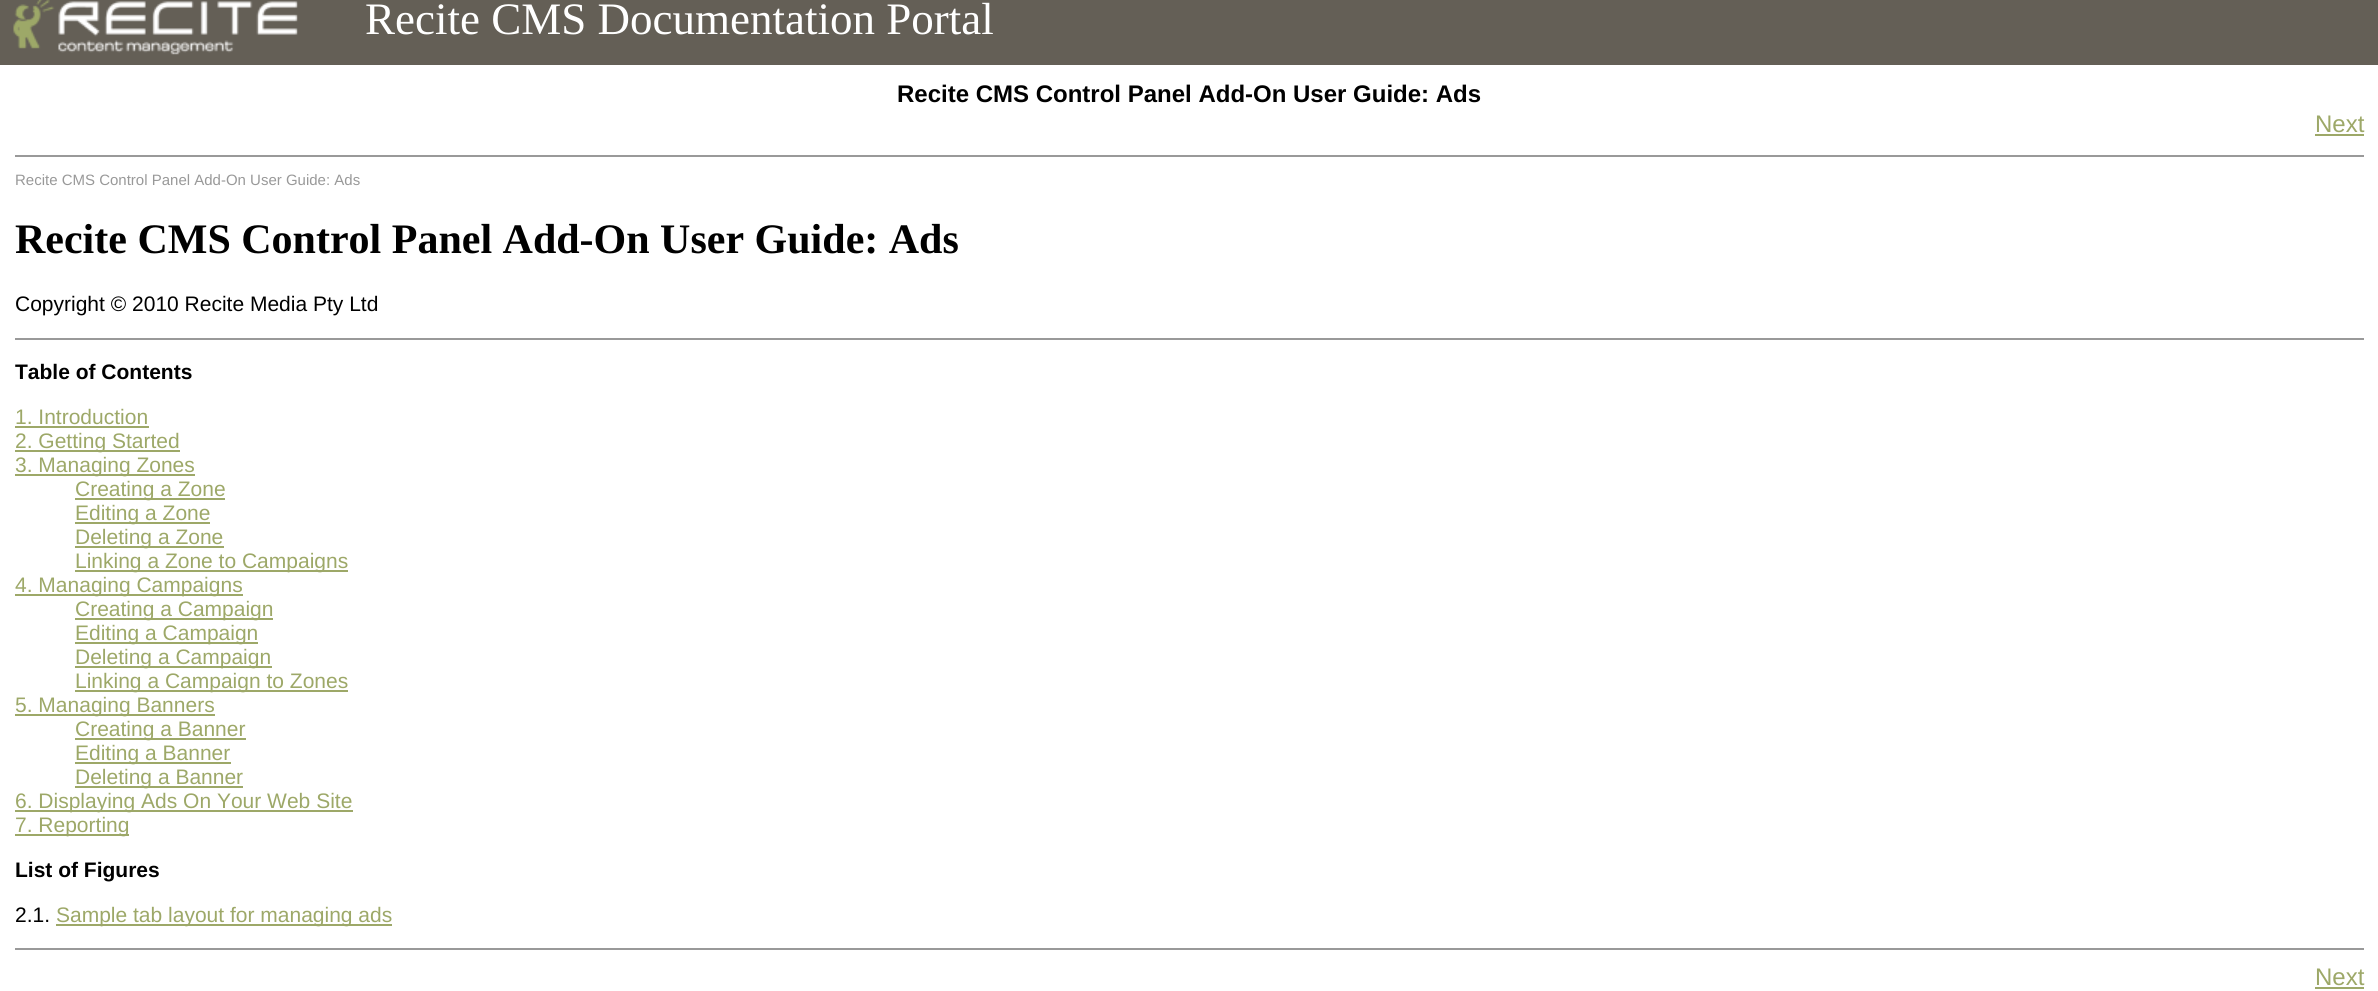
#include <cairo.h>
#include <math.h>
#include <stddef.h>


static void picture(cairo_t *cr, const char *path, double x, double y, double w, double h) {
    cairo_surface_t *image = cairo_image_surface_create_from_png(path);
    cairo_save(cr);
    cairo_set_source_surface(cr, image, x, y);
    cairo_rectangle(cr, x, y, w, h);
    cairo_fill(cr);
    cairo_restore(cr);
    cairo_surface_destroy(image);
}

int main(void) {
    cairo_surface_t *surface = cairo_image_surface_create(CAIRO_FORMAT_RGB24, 2378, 991);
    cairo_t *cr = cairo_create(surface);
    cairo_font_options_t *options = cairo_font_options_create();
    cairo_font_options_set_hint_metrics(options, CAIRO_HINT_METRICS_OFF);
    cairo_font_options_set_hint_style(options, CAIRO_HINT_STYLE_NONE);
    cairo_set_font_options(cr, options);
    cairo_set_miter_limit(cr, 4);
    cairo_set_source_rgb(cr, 1, 1, 1);
    cairo_paint(cr);
    cairo_set_source_rgb(cr, 0.392, 0.373, 0.337);
    cairo_rectangle(cr, 0, 0, 2378, 65);
    cairo_fill(cr);
    picture(cr, "img1.png", 13, 0, 285, 55);
    cairo_select_font_face(cr, "Liberation Serif", CAIRO_FONT_SLANT_NORMAL, CAIRO_FONT_WEIGHT_NORMAL);
    cairo_set_font_size(cr, 45);
    cairo_set_source_rgb(cr, 1, 1, 1);
    cairo_move_to(cr, 365, 34);
    cairo_show_text(cr, "Recite CMS Documentation Portal");
    cairo_select_font_face(cr, "Liberation Sans", CAIRO_FONT_SLANT_NORMAL, CAIRO_FONT_WEIGHT_BOLD);
    cairo_set_font_size(cr, 24);
    cairo_set_source_rgb(cr, 0, 0, 0);
    cairo_move_to(cr, 897, 102);
    cairo_show_text(cr, "Recite CMS Control Panel Add-On User Guide: Ads");
    cairo_select_font_face(cr, "Liberation Sans", CAIRO_FONT_SLANT_NORMAL, CAIRO_FONT_WEIGHT_NORMAL);
    cairo_set_source_rgb(cr, 0.616, 0.659, 0.408);
    cairo_move_to(cr, 2315, 132);
    cairo_show_text(cr, "Next");
    cairo_rectangle(cr, 2315, 134, 49, 2);
    cairo_fill(cr);
    cairo_set_source_rgb(cr, 0.6, 0.6, 0.6);
    cairo_rectangle(cr, 15, 155, 2349, 2);
    cairo_fill(cr);
    cairo_set_font_size(cr, 15);
    cairo_move_to(cr, 15, 185);
    cairo_show_text(cr, "Recite CMS Control Panel Add-On User Guide: Ads");
    cairo_select_font_face(cr, "Liberation Serif", CAIRO_FONT_SLANT_NORMAL, CAIRO_FONT_WEIGHT_BOLD);
    cairo_set_font_size(cr, 42);
    cairo_set_source_rgb(cr, 0, 0, 0);
    cairo_move_to(cr, 15, 253);
    cairo_show_text(cr, "Recite CMS Control Panel Add-On User Guide: Ads");
    cairo_select_font_face(cr, "Liberation Sans", CAIRO_FONT_SLANT_NORMAL, CAIRO_FONT_WEIGHT_NORMAL);
    cairo_set_font_size(cr, 21);
    cairo_move_to(cr, 15, 311);
    cairo_show_text(cr, "Copyright © 2010 Recite Media Pty Ltd");
    cairo_set_source_rgb(cr, 0.6, 0.6, 0.6);
    cairo_rectangle(cr, 15, 338, 2349, 2);
    cairo_fill(cr);
    cairo_select_font_face(cr, "Liberation Sans", CAIRO_FONT_SLANT_NORMAL, CAIRO_FONT_WEIGHT_BOLD);
    cairo_set_source_rgb(cr, 0, 0, 0);
    cairo_move_to(cr, 15, 379);
    cairo_show_text(cr, "Table of Contents");
    cairo_select_font_face(cr, "Liberation Sans", CAIRO_FONT_SLANT_NORMAL, CAIRO_FONT_WEIGHT_NORMAL);
    cairo_set_source_rgb(cr, 0.616, 0.659, 0.408);
    cairo_move_to(cr, 15, 424);
    cairo_show_text(cr, "1. Introduction");
    cairo_rectangle(cr, 15, 426, 134, 2);
    cairo_fill(cr);
    cairo_rectangle(cr, 15, 450, 165, 2);
    cairo_fill(cr);
    cairo_move_to(cr, 15, 448);
    cairo_show_text(cr, "2. Getting Started");
    cairo_rectangle(cr, 15, 474, 180, 2);
    cairo_fill(cr);
    cairo_move_to(cr, 15, 472);
    cairo_show_text(cr, "3. Managing Zones");
    cairo_rectangle(cr, 75, 498, 150, 2);
    cairo_fill(cr);
    cairo_move_to(cr, 75, 496);
    cairo_show_text(cr, "Creating a Zone");
    cairo_rectangle(cr, 75, 522, 135, 2);
    cairo_fill(cr);
    cairo_move_to(cr, 75, 520);
    cairo_show_text(cr, "Editing a Zone");
    cairo_rectangle(cr, 75, 546, 149, 2);
    cairo_fill(cr);
    cairo_move_to(cr, 75, 544);
    cairo_show_text(cr, "Deleting a Zone");
    cairo_rectangle(cr, 75, 570, 273, 2);
    cairo_fill(cr);
    cairo_move_to(cr, 75, 568);
    cairo_show_text(cr, "Linking a Zone to Campaigns");
    cairo_rectangle(cr, 15, 594, 228, 2);
    cairo_fill(cr);
    cairo_move_to(cr, 15, 592);
    cairo_show_text(cr, "4. Managing Campaigns");
    cairo_rectangle(cr, 75, 618, 198, 2);
    cairo_fill(cr);
    cairo_move_to(cr, 75, 616);
    cairo_show_text(cr, "Creating a Campaign");
    cairo_rectangle(cr, 75, 642, 183, 2);
    cairo_fill(cr);
    cairo_move_to(cr, 75, 640);
    cairo_show_text(cr, "Editing a Campaign");
    cairo_rectangle(cr, 75, 666, 197, 2);
    cairo_fill(cr);
    cairo_move_to(cr, 75, 664);
    cairo_show_text(cr, "Deleting a Campaign");
    cairo_rectangle(cr, 75, 690, 273, 2);
    cairo_fill(cr);
    cairo_move_to(cr, 75, 688);
    cairo_show_text(cr, "Linking a Campaign to Zones");
    cairo_rectangle(cr, 15, 714, 200, 2);
    cairo_fill(cr);
    cairo_move_to(cr, 15, 712);
    cairo_show_text(cr, "5. Managing Banners");
    cairo_rectangle(cr, 75, 738, 171, 2);
    cairo_fill(cr);
    cairo_move_to(cr, 75, 736);
    cairo_show_text(cr, "Creating a Banner");
    cairo_rectangle(cr, 75, 762, 156, 2);
    cairo_fill(cr);
    cairo_move_to(cr, 75, 760);
    cairo_show_text(cr, "Editing a Banner");
    cairo_rectangle(cr, 75, 786, 168, 2);
    cairo_fill(cr);
    cairo_move_to(cr, 75, 784);
    cairo_show_text(cr, "Deleting a Banner");
    cairo_rectangle(cr, 15, 810, 338, 2);
    cairo_fill(cr);
    cairo_move_to(cr, 15, 808);
    cairo_show_text(cr, "6. Displaying Ads On Your Web Site");
    cairo_rectangle(cr, 15, 834, 114, 2);
    cairo_fill(cr);
    cairo_move_to(cr, 15, 832);
    cairo_show_text(cr, "7. Reporting");
    cairo_select_font_face(cr, "Liberation Sans", CAIRO_FONT_SLANT_NORMAL, CAIRO_FONT_WEIGHT_BOLD);
    cairo_set_source_rgb(cr, 0, 0, 0);
    cairo_move_to(cr, 15, 877);
    cairo_show_text(cr, "List of Figures");
    cairo_select_font_face(cr, "Liberation Sans", CAIRO_FONT_SLANT_NORMAL, CAIRO_FONT_WEIGHT_NORMAL);
    cairo_move_to(cr, 15, 922);
    cairo_show_text(cr, "2.1.");
    cairo_set_source_rgb(cr, 0.616, 0.659, 0.408);
    cairo_rectangle(cr, 56, 924, 336, 2);
    cairo_fill(cr);
    cairo_move_to(cr, 56, 922);
    cairo_show_text(cr, "Sample tab layout for managing ads");
    cairo_set_source_rgb(cr, 0.6, 0.6, 0.6);
    cairo_rectangle(cr, 15, 948, 2349, 2);
    cairo_fill(cr);
    cairo_set_font_size(cr, 24);
    cairo_set_source_rgb(cr, 0.616, 0.659, 0.408);
    cairo_move_to(cr, 2315, 985);
    cairo_show_text(cr, "Next");
    cairo_rectangle(cr, 2315, 987, 49, 2);
    cairo_fill(cr);
    cairo_surface_write_to_png(surface, "page.png");
    cairo_font_options_destroy(options);
    cairo_destroy(cr);
    cairo_surface_destroy(surface);
    return 0;
}
